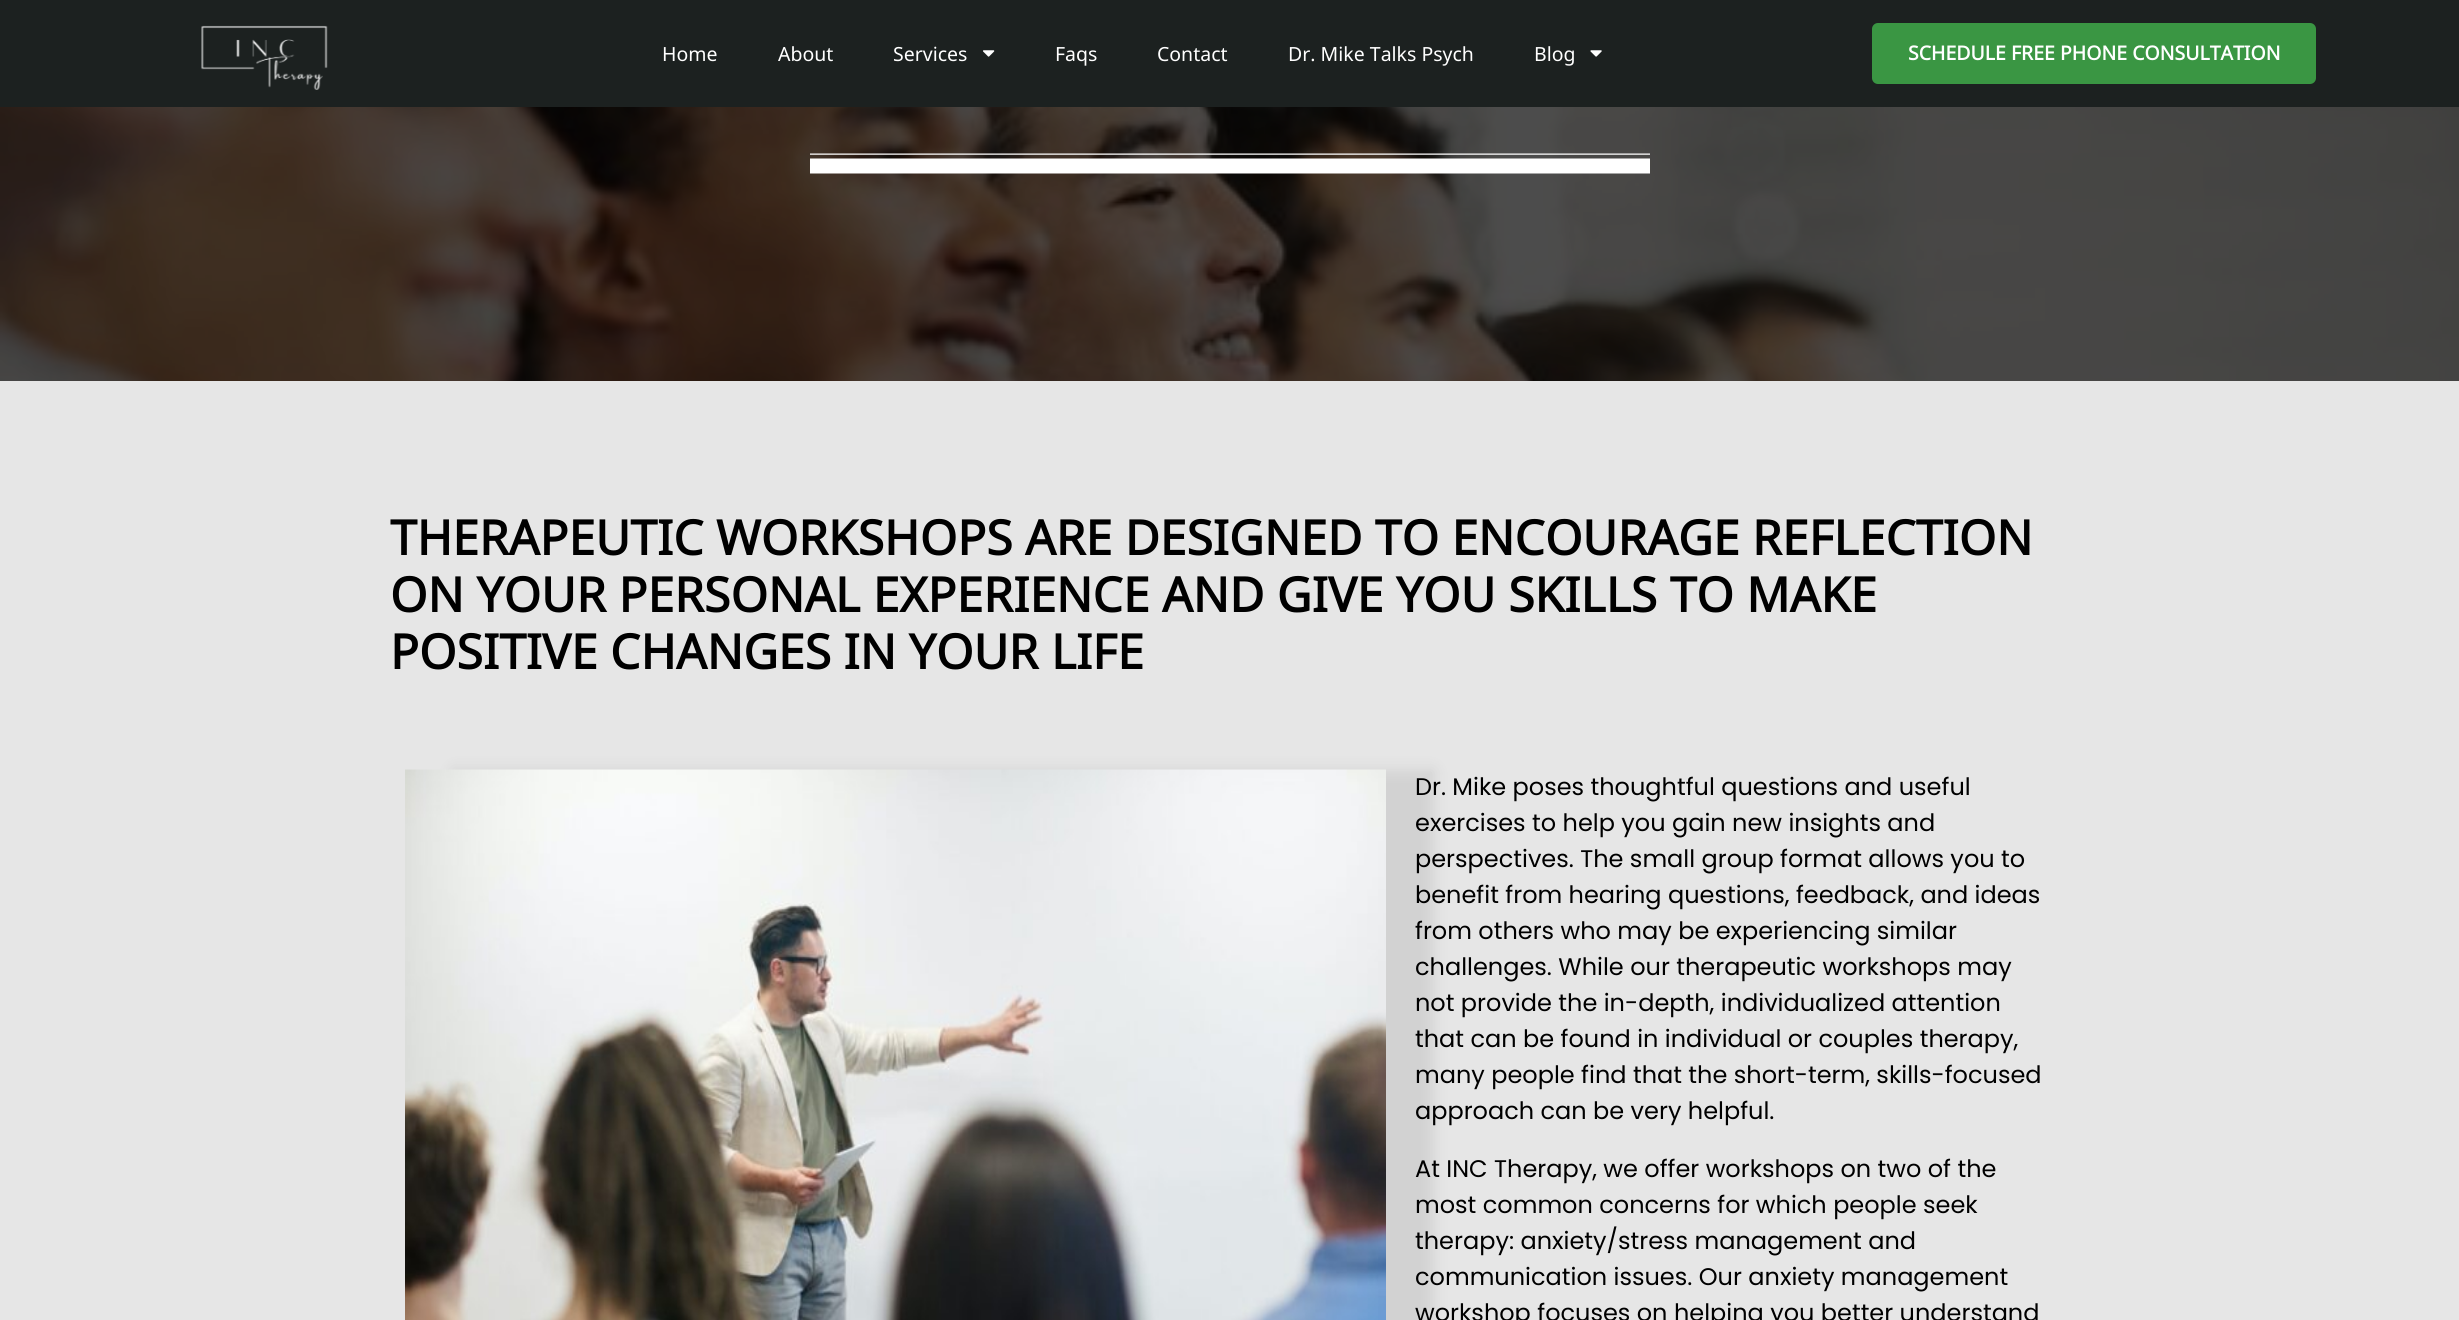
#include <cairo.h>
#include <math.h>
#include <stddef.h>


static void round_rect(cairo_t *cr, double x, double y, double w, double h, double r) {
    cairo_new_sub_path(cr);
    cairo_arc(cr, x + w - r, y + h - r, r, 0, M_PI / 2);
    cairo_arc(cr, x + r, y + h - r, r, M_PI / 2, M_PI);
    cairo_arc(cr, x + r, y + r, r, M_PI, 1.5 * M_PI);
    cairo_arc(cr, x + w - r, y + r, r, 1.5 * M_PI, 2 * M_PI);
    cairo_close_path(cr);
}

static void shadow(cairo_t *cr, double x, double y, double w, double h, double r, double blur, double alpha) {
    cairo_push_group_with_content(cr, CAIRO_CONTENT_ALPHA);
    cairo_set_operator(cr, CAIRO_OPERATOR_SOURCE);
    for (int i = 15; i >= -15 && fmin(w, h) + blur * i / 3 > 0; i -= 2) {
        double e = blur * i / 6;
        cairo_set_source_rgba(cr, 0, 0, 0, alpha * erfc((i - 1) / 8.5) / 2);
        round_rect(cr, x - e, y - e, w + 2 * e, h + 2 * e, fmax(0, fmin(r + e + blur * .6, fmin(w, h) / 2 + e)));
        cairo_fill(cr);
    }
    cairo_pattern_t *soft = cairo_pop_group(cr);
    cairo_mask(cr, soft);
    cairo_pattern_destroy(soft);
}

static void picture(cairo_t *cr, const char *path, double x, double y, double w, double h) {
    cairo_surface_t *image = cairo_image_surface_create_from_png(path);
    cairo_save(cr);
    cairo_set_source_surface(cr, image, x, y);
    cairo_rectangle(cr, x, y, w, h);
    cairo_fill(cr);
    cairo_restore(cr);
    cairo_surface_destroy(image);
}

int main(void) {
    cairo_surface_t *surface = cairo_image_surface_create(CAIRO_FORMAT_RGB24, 2459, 1320);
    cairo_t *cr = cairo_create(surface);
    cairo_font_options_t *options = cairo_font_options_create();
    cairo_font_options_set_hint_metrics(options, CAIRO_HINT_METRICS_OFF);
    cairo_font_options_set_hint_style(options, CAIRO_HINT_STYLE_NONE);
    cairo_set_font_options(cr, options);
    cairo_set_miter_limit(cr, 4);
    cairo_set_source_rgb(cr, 1, 1, 1);
    cairo_paint(cr);
    cairo_set_source_rgb(cr, 0.11, 0.129, 0.125);
    cairo_rectangle(cr, 0, 0, 2459, 107);
    cairo_fill(cr);
    picture(cr, "img1.png", 201, 25, 127, 65);
    cairo_select_font_face(cr, "Noto Sans Imperial Aramaic", CAIRO_FONT_SLANT_NORMAL, CAIRO_FONT_WEIGHT_NORMAL);
    cairo_set_font_size(cr, 19.5);
    cairo_set_source_rgb(cr, 1, 1, 1);
    cairo_move_to(cr, 662, 61);
    cairo_show_text(cr, "Home");
    cairo_move_to(cr, 778, 61);
    cairo_show_text(cr, "About");
    cairo_move_to(cr, 893, 61);
    cairo_show_text(cr, "Services");
    picture(cr, "img2.png", 983, 50, 12, 7);
    cairo_move_to(cr, 1055, 61);
    cairo_show_text(cr, "Faqs");
    cairo_move_to(cr, 1157, 61);
    cairo_show_text(cr, "Contact");
    cairo_move_to(cr, 1288, 61);
    cairo_show_text(cr, "Dr. Mike Talks Psych");
    cairo_move_to(cr, 1534, 61);
    cairo_show_text(cr, "Blog");
    picture(cr, "img3.png", 1590, 50, 12, 7);
    cairo_set_source_rgb(cr, 0.227, 0.588, 0.263);
    round_rect(cr, 1872, 23, 444, 61, 6);
    cairo_fill(cr);
    cairo_select_font_face(cr, "Noto Sans Imperial Aramaic", CAIRO_FONT_SLANT_NORMAL, CAIRO_FONT_WEIGHT_BOLD);
    cairo_set_source_rgb(cr, 1, 1, 1);
    cairo_move_to(cr, 1908, 60);
    cairo_show_text(cr, "SCHEDULE FREE PHONE CONSULTATION");
    picture(cr, "img4.png", 0, 107, 2459, 274);
    picture(cr, "img5.png", 810, 153, 840, 21);
    cairo_set_source_rgb(cr, 0.902, 0.902, 0.902);
    cairo_rectangle(cr, 0, 381, 2459, 939);
    cairo_fill(cr);
    cairo_set_font_size(cr, 48);
    cairo_set_source_rgb(cr, 0, 0, 0);
    cairo_move_to(cr, 390, 555);
    cairo_show_text(cr, "THERAPEUTIC WORKSHOPS ARE DESIGNED TO ENCOURAGE REFLECTION");
    cairo_move_to(cr, 390, 612);
    cairo_show_text(cr, "ON YOUR PERSONAL EXPERIENCE AND GIVE YOU SKILLS TO MAKE");
    cairo_move_to(cr, 390, 669);
    cairo_show_text(cr, "POSITIVE CHANGES IN YOUR LIFE");
    cairo_set_source_rgb(cr, 0, 0, 0);
    shadow(cr, 453, 770, 981, 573, 0, 7.5, 0.09);
    picture(cr, "img6.png", 405, 769, 981, 551);
    cairo_select_font_face(cr, "Poppins", CAIRO_FONT_SLANT_NORMAL, CAIRO_FONT_WEIGHT_NORMAL);
    cairo_set_font_size(cr, 24);
    cairo_set_source_rgb(cr, 0, 0, 0);
    cairo_move_to(cr, 1415, 795);
    cairo_show_text(cr, "Dr. Mike poses thoughtful questions and useful");
    cairo_move_to(cr, 1415, 831);
    cairo_show_text(cr, "exercises to help you gain new insights and");
    cairo_move_to(cr, 1415, 867);
    cairo_show_text(cr, "perspectives. The small group format allows you to");
    cairo_move_to(cr, 1415, 903);
    cairo_show_text(cr, "benefit from hearing questions, feedback, and ideas");
    cairo_move_to(cr, 1415, 939);
    cairo_show_text(cr, "from others who may be experiencing similar");
    cairo_move_to(cr, 1415, 975);
    cairo_show_text(cr, "challenges. While our therapeutic workshops may");
    cairo_move_to(cr, 1415, 1011);
    cairo_show_text(cr, "not provide the in-depth, individualized attention");
    cairo_move_to(cr, 1415, 1047);
    cairo_show_text(cr, "that can be found in individual or couples therapy,");
    cairo_move_to(cr, 1415, 1083);
    cairo_show_text(cr, "many people find that the short-term, skills-focused");
    cairo_move_to(cr, 1415, 1119);
    cairo_show_text(cr, "approach can be very helpful.");
    cairo_move_to(cr, 1415, 1177);
    cairo_show_text(cr, "At INC Therapy, we offer workshops on two of the");
    cairo_move_to(cr, 1415, 1213);
    cairo_show_text(cr, "most common concerns for which people seek");
    cairo_move_to(cr, 1415, 1249);
    cairo_show_text(cr, "therapy: anxiety/stress management and");
    cairo_move_to(cr, 1415, 1285);
    cairo_show_text(cr, "communication issues. Our anxiety management");
    cairo_move_to(cr, 1415, 1321);
    cairo_show_text(cr, "workshop focuses on helping you better understand");
    cairo_surface_write_to_png(surface, "page.png");
    cairo_font_options_destroy(options);
    cairo_destroy(cr);
    cairo_surface_destroy(surface);
    return 0;
}
